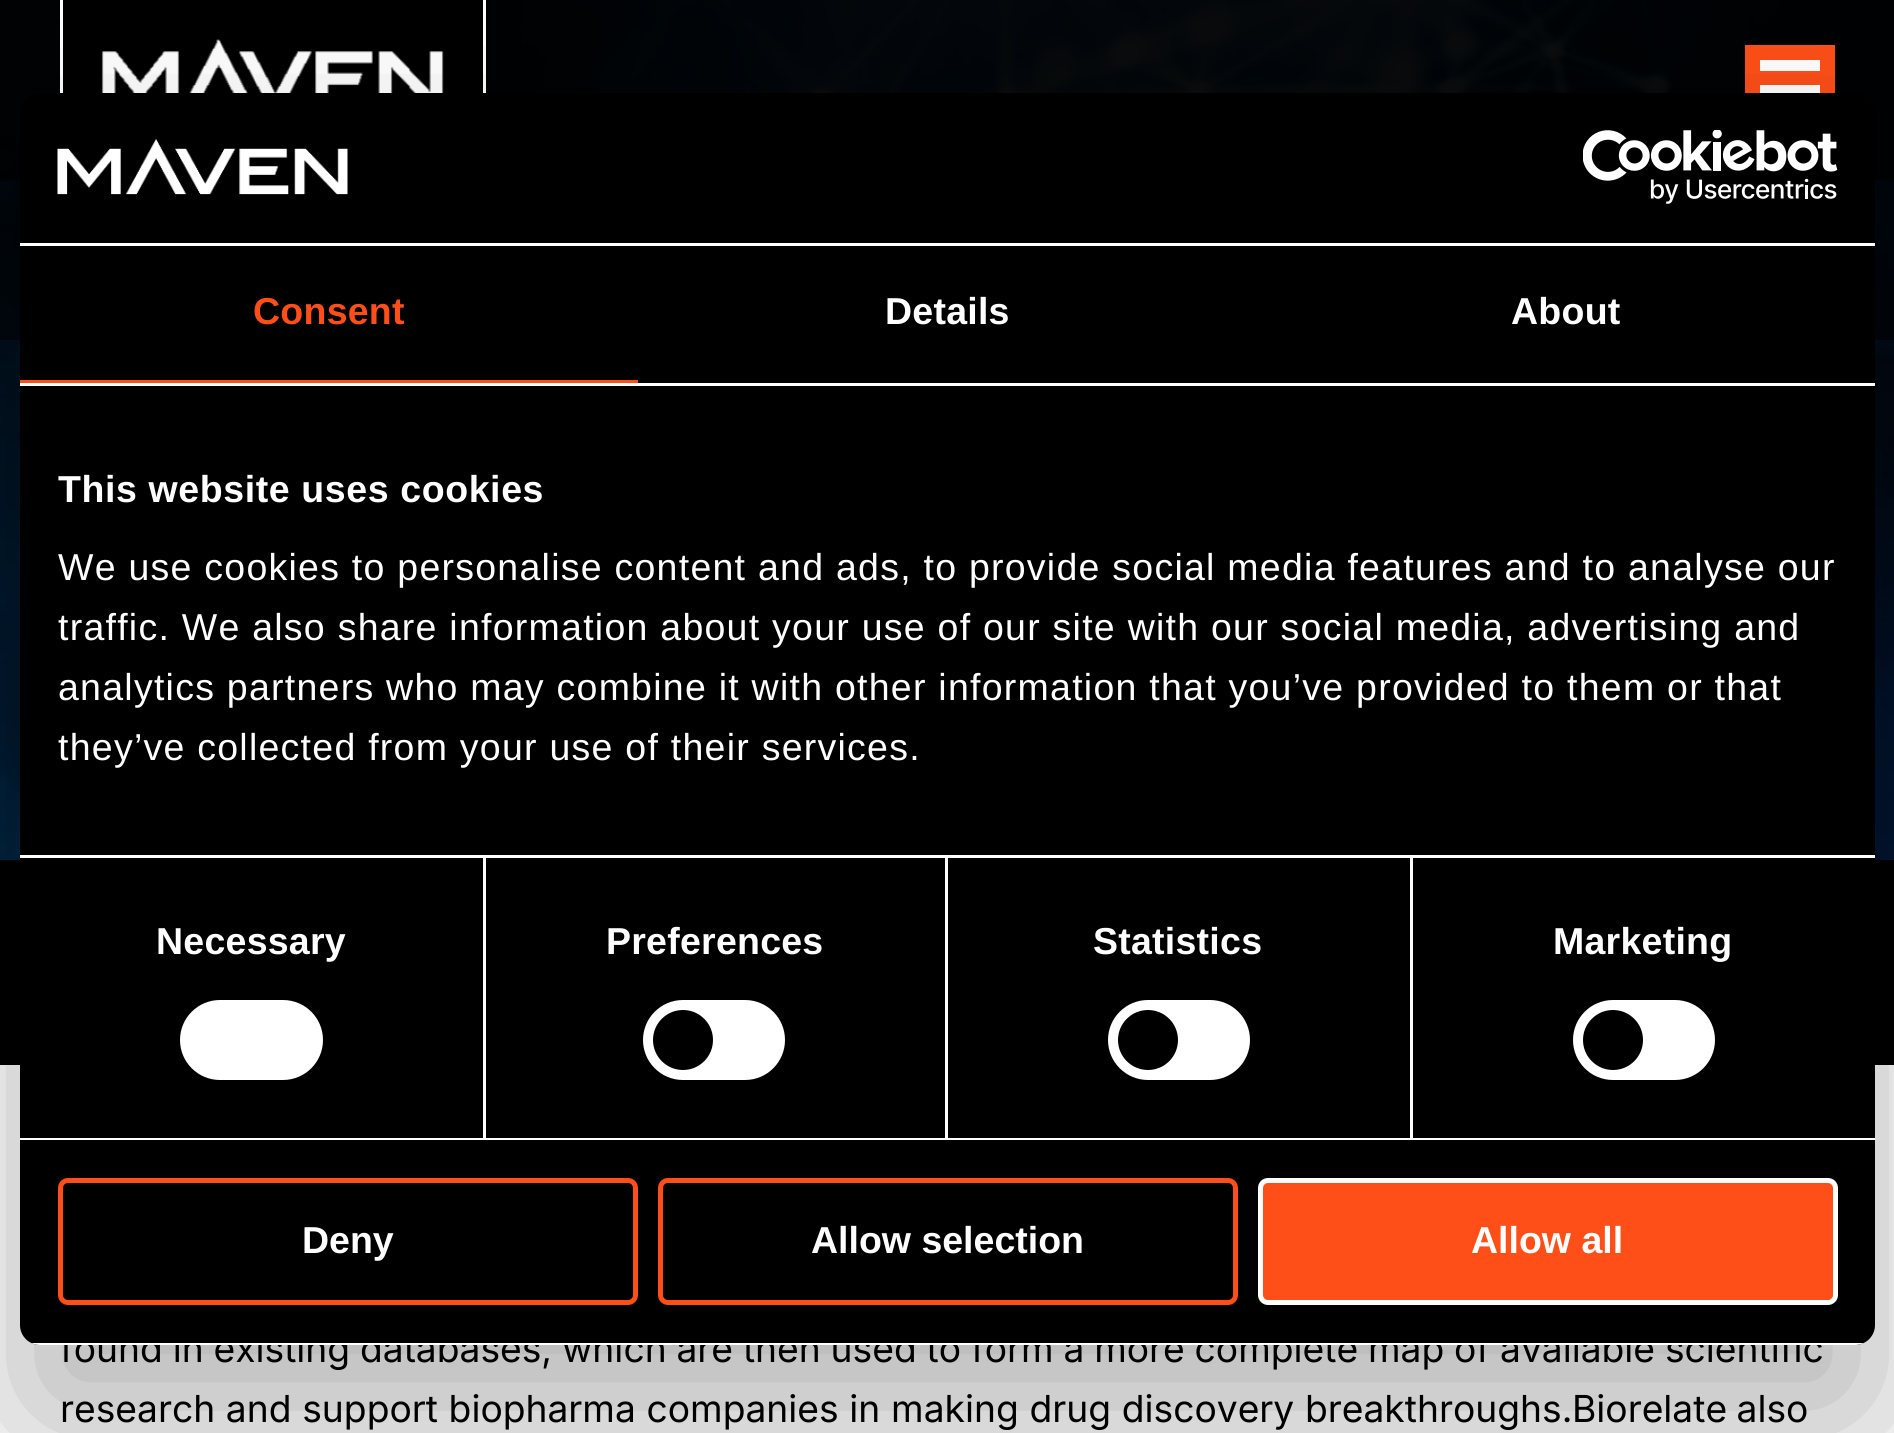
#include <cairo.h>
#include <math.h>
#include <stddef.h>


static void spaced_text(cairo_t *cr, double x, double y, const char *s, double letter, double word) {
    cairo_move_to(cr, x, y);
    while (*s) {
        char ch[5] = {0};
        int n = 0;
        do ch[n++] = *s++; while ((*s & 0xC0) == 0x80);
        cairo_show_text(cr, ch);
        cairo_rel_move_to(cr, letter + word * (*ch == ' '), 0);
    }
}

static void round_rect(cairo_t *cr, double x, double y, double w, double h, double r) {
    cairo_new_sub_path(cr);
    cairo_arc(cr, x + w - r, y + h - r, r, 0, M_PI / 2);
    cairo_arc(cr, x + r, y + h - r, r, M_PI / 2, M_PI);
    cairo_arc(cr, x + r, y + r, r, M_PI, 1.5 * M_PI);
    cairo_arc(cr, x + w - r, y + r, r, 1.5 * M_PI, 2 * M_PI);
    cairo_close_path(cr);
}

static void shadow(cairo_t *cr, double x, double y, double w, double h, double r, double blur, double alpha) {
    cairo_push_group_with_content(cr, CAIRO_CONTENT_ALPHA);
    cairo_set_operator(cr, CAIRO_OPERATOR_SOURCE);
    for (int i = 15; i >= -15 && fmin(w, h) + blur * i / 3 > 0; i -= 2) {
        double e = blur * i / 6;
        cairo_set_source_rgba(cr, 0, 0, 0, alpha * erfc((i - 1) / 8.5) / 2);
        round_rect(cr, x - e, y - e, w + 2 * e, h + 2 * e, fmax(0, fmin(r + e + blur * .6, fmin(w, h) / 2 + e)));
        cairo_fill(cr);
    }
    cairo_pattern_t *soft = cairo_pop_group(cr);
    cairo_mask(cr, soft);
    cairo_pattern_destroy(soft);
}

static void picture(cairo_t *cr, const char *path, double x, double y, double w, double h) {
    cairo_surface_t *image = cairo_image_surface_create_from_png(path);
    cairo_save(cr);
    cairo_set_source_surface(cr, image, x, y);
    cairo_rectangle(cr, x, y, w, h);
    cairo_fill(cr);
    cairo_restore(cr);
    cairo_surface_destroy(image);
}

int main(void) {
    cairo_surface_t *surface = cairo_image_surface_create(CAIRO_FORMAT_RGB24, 1894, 1433);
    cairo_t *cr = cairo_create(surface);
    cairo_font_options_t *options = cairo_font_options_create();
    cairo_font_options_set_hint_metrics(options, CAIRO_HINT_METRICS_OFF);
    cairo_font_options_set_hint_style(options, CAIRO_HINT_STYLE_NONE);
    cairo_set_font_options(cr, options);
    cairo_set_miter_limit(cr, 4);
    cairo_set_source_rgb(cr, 1, 1, 1);
    cairo_paint(cr);
    picture(cr, "img4.png", 0, 0, 1894, 860);
    cairo_set_source_rgba(cr, 0, 0, 0, 0.9);
    cairo_rectangle(cr, 0, 0, 1894, 180);
    cairo_fill(cr);
    cairo_set_source_rgb(cr, 0, 0, 0);
    cairo_rectangle(cr, 63, 0, 420, 93);
    cairo_fill(cr);
    cairo_set_source_rgb(cr, 1, 1, 1);
    cairo_rectangle(cr, 483, 0, 3, 93);
    cairo_fill(cr);
    cairo_rectangle(cr, 60, 0, 3, 93);
    cairo_fill(cr);
    picture(cr, "img3.png", 101, 39, 343, 54);
    cairo_set_source_rgb(cr, 1, 0.31, 0.094);
    cairo_rectangle(cr, 1745, 45, 90, 48);
    cairo_fill(cr);
    cairo_set_source_rgb(cr, 1, 1, 1);
    cairo_rectangle(cr, 1760, 60, 60, 11);
    cairo_fill(cr);
    cairo_rectangle(cr, 1760, 85, 60, 8);
    cairo_fill(cr);
    cairo_set_source_rgba(cr, 0, 0, 0, 0.5);
    cairo_rectangle(cr, 0, 180, 1894, 160);
    cairo_fill(cr);
    cairo_set_source_rgb(cr, 0, 0, 0);
    cairo_rectangle(cr, 0, 860, 1894, 205);
    cairo_fill(cr);
    cairo_set_source_rgb(cr, 0, 0, 0);
    shadow(cr, 20, 173, 1855, 1252, 20, 85, 0.3);
    cairo_set_source_rgb(cr, 0, 0, 0);
    round_rect(cr, 20, 93, 1855, 1252, 20);
    cairo_fill(cr);
    cairo_set_source_rgb(cr, 1, 1, 1);
    cairo_rectangle(cr, 20, 243, 1855, 3);
    cairo_fill(cr);
    picture(cr, "img1.png", 57, 138, 291, 57);
    picture(cr, "img2.png", 1583, 130, 255, 74);
    cairo_rectangle(cr, 20, 383, 1855, 3);
    cairo_fill(cr);
    cairo_set_source_rgb(cr, 1, 0.31, 0.094);
    cairo_rectangle(cr, 20, 380, 618, 3);
    cairo_fill(cr);
    cairo_select_font_face(cr, "Liberation Sans", CAIRO_FONT_SLANT_NORMAL, CAIRO_FONT_WEIGHT_BOLD);
    cairo_set_font_size(cr, 37.5);
    spaced_text(cr, 253, 324, "Consent", 0.25, 0);
    cairo_set_source_rgb(cr, 1, 1, 1);
    spaced_text(cr, 885, 324, "Details", 0.25, 0);
    spaced_text(cr, 1511, 324, "About", 0.25, 0);
    cairo_rectangle(cr, 20, 855, 1855, 3);
    cairo_fill(cr);
    spaced_text(cr, 58, 502, "This website uses cookies", 0.6, 0);
    cairo_select_font_face(cr, "Liberation Sans", CAIRO_FONT_SLANT_NORMAL, CAIRO_FONT_WEIGHT_NORMAL);
    spaced_text(cr, 58, 580, "We use cookies to personalise content and ads, to provide social media features and to analyse our", 1.25, 0);
    spaced_text(cr, 58, 640, "traffic. We also share information about your use of our site with our social media, advertising and", 1.25, 0);
    spaced_text(cr, 58, 700, "analytics partners who may combine it with other information that you’ve provided to them or that", 1.25, 0);
    spaced_text(cr, 58, 760, "they’ve collected from your use of their services.", 1.25, 0);
    cairo_rectangle(cr, 20, 1138, 1855, 2);
    cairo_fill(cr);
    cairo_rectangle(cr, 483, 858, 3, 280);
    cairo_fill(cr);
    cairo_select_font_face(cr, "Liberation Sans", CAIRO_FONT_SLANT_NORMAL, CAIRO_FONT_WEIGHT_BOLD);
    spaced_text(cr, 156, 954, "Necessary", 0.25, 0);
    round_rect(cr, 180, 1000, 143, 80, 40);
    cairo_fill(cr);
    cairo_rectangle(cr, 945, 858, 3, 280);
    cairo_fill(cr);
    spaced_text(cr, 606, 954, "Preferences", 0.25, 0);
    round_rect(cr, 643, 1000, 142, 80, 40);
    cairo_fill(cr);
    cairo_set_source_rgb(cr, 0, 0, 0);
    cairo_arc(cr, 683, 1040, 30, 0, 2 * M_PI);
    cairo_fill(cr);
    cairo_set_source_rgb(cr, 1, 1, 1);
    cairo_rectangle(cr, 1410, 858, 3, 280);
    cairo_fill(cr);
    spaced_text(cr, 1093, 954, "Statistics", 0.25, 0);
    round_rect(cr, 1108, 1000, 142, 80, 40);
    cairo_fill(cr);
    cairo_set_source_rgb(cr, 0, 0, 0);
    cairo_arc(cr, 1148, 1040, 30, 0, 2 * M_PI);
    cairo_fill(cr);
    cairo_set_source_rgb(cr, 1, 1, 1);
    spaced_text(cr, 1553, 954, "Marketing", 0.25, 0);
    round_rect(cr, 1573, 1000, 142, 80, 40);
    cairo_fill(cr);
    cairo_set_source_rgb(cr, 0, 0, 0);
    cairo_arc(cr, 1613, 1040, 30, 0, 2 * M_PI);
    cairo_fill(cr);
    cairo_select_font_face(cr, "Inter", CAIRO_FONT_SLANT_NORMAL, CAIRO_FONT_WEIGHT_NORMAL);
    cairo_set_font_size(cr, 37.2);
    spaced_text(cr, 60, 1362, "found in existing databases, which are then used to form a more complete map of available scientific", 0, -0.6);
    cairo_save(cr);
    round_rect(cr, 20, 93, 1855, 1252, 20);
    cairo_clip(cr);
    cairo_set_source_rgb(cr, 1, 1, 1);
    cairo_rectangle(cr, 31, 1343, 1833, 2);
    cairo_fill(cr);
    cairo_restore(cr);
    round_rect(cr, 60.5, 1180.5, 575, 122, 7.5);
    cairo_set_source_rgb(cr, 1, 0.31, 0.094);
    cairo_set_line_width(cr, 5);
    cairo_stroke(cr);
    cairo_select_font_face(cr, "Liberation Sans", CAIRO_FONT_SLANT_NORMAL, CAIRO_FONT_WEIGHT_BOLD);
    cairo_set_font_size(cr, 37.5);
    cairo_set_source_rgb(cr, 1, 1, 1);
    cairo_move_to(cr, 302, 1253);
    cairo_show_text(cr, "Deny");
    round_rect(cr, 660.5, 1180.5, 575, 122, 7.5);
    cairo_set_source_rgb(cr, 1, 0.31, 0.094);
    cairo_stroke(cr);
    cairo_set_source_rgb(cr, 1, 1, 1);
    cairo_move_to(cr, 811, 1253);
    cairo_show_text(cr, "Allow selection");
    cairo_set_source_rgb(cr, 1, 0.31, 0.094);
    round_rect(cr, 1260.5, 1180.5, 575, 122, 7.5);
    cairo_fill_preserve(cr);
    cairo_set_source_rgb(cr, 1, 1, 1);
    cairo_stroke(cr);
    cairo_move_to(cr, 1471, 1253);
    cairo_show_text(cr, "Allow all");
    cairo_select_font_face(cr, "Inter", CAIRO_FONT_SLANT_NORMAL, CAIRO_FONT_WEIGHT_NORMAL);
    cairo_set_font_size(cr, 37.2);
    cairo_set_source_rgb(cr, 0, 0, 0);
    spaced_text(cr, 60, 1422, "research and support biopharma companies in making drug discovery breakthroughs.", 0, 0.25);
    spaced_text(cr, 1572, 1422, "Biorelate also", 0, -1);
    cairo_surface_write_to_png(surface, "page.png");
    cairo_font_options_destroy(options);
    cairo_destroy(cr);
    cairo_surface_destroy(surface);
    return 0;
}
